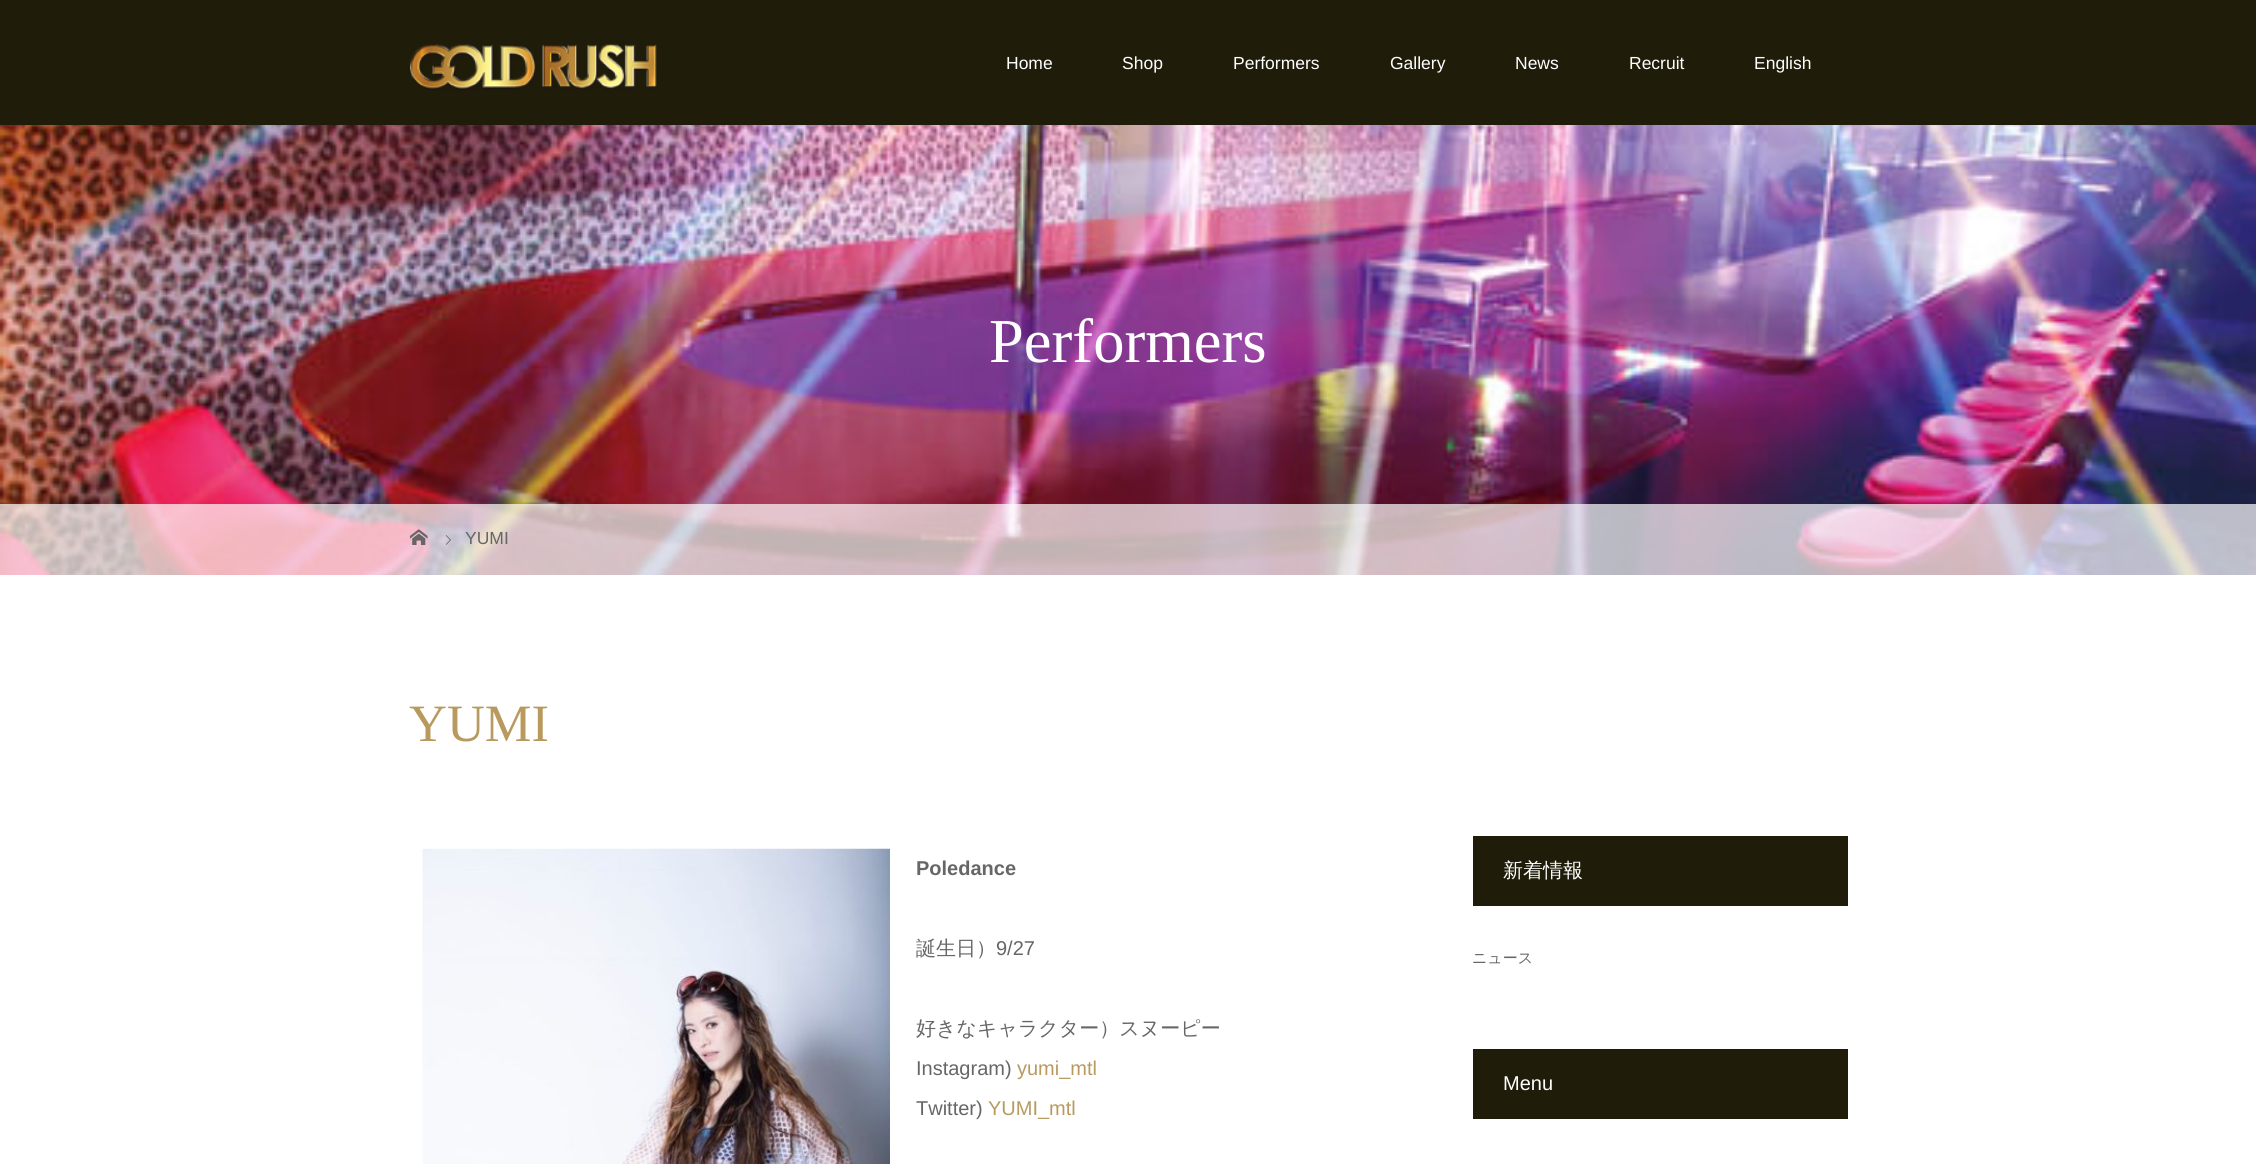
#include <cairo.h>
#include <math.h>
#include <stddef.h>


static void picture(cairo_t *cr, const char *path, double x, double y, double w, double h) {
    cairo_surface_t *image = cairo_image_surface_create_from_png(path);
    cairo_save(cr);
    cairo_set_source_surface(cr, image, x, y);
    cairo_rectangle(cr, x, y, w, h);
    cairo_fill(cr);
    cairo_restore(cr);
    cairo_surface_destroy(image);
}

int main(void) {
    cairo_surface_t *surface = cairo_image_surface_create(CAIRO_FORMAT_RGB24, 2256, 1164);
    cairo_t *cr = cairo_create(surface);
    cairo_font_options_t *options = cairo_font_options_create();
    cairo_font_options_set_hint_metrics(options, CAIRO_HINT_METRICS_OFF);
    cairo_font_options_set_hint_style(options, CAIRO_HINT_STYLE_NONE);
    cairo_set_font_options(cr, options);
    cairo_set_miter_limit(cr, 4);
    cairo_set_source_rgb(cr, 1, 1, 1);
    cairo_paint(cr);
    cairo_set_source_rgb(cr, 0.122, 0.11, 0.039);
    cairo_rectangle(cr, 0, 0, 2256, 125);
    cairo_fill(cr);
    picture(cr, "img1.png", 410, 44, 248, 47);
    cairo_select_font_face(cr, "Liberation Sans", CAIRO_FONT_SLANT_NORMAL, CAIRO_FONT_WEIGHT_NORMAL);
    cairo_set_font_size(cr, 17.5);
    cairo_set_source_rgb(cr, 1, 1, 1);
    cairo_move_to(cr, 1006, 69);
    cairo_show_text(cr, "Home");
    cairo_move_to(cr, 1122, 69);
    cairo_show_text(cr, "Shop");
    cairo_move_to(cr, 1233, 69);
    cairo_show_text(cr, "Performers");
    cairo_move_to(cr, 1390, 69);
    cairo_show_text(cr, "Gallery");
    cairo_move_to(cr, 1515, 69);
    cairo_show_text(cr, "News");
    cairo_move_to(cr, 1629, 69);
    cairo_show_text(cr, "Recruit");
    cairo_move_to(cr, 1754, 69);
    cairo_show_text(cr, "English");
    picture(cr, "img2.png", 0, 125, 2256, 450);
    cairo_select_font_face(cr, "Liberation Serif", CAIRO_FONT_SLANT_NORMAL, CAIRO_FONT_WEIGHT_NORMAL);
    cairo_set_font_size(cr, 62.5);
    cairo_move_to(cr, 989, 362);
    cairo_show_text(cr, "Performers");
    cairo_set_source_rgba(cr, 1, 1, 1, 0.7);
    cairo_rectangle(cr, 0, 504, 2256, 71);
    cairo_fill(cr);
    picture(cr, "img3.png", 410, 529, 18, 16);
    picture(cr, "img4.png", 445, 535, 6, 10);
    cairo_select_font_face(cr, "Liberation Sans", CAIRO_FONT_SLANT_NORMAL, CAIRO_FONT_WEIGHT_NORMAL);
    cairo_set_font_size(cr, 17.5);
    cairo_set_source_rgb(cr, 0.4, 0.4, 0.4);
    cairo_move_to(cr, 465, 544);
    cairo_show_text(cr, "YUMI");
    cairo_select_font_face(cr, "Liberation Serif", CAIRO_FONT_SLANT_NORMAL, CAIRO_FONT_WEIGHT_NORMAL);
    cairo_set_font_size(cr, 52.5);
    cairo_set_source_rgb(cr, 0.722, 0.604, 0.369);
    cairo_move_to(cr, 409, 741);
    cairo_show_text(cr, "YUMI");
    picture(cr, "img5.png", 422, 848, 468, 316);
    cairo_select_font_face(cr, "Liberation Sans", CAIRO_FONT_SLANT_NORMAL, CAIRO_FONT_WEIGHT_BOLD);
    cairo_set_font_size(cr, 20);
    cairo_set_source_rgb(cr, 0.4, 0.4, 0.4);
    cairo_move_to(cr, 916, 875);
    cairo_show_text(cr, "Poledance");
    cairo_select_font_face(cr, "WenQuanYi Zen Hei Medium", CAIRO_FONT_SLANT_NORMAL, CAIRO_FONT_WEIGHT_NORMAL);
    cairo_move_to(cr, 916, 955);
    cairo_show_text(cr, "誕生日）");
    cairo_select_font_face(cr, "Liberation Sans", CAIRO_FONT_SLANT_NORMAL, CAIRO_FONT_WEIGHT_NORMAL);
    cairo_move_to(cr, 996, 955);
    cairo_show_text(cr, "9/27");
    cairo_select_font_face(cr, "WenQuanYi Zen Hei Medium", CAIRO_FONT_SLANT_NORMAL, CAIRO_FONT_WEIGHT_NORMAL);
    cairo_move_to(cr, 916, 1035);
    cairo_show_text(cr, "好きなキャラクター）スヌーピー");
    cairo_select_font_face(cr, "Liberation Sans", CAIRO_FONT_SLANT_NORMAL, CAIRO_FONT_WEIGHT_NORMAL);
    cairo_move_to(cr, 916, 1075);
    cairo_show_text(cr, "Instagram)");
    cairo_set_source_rgb(cr, 0.722, 0.604, 0.369);
    cairo_move_to(cr, 1017, 1075);
    cairo_show_text(cr, "yumi_mtl");
    cairo_set_source_rgb(cr, 0.4, 0.4, 0.4);
    cairo_move_to(cr, 916, 1115);
    cairo_show_text(cr, "Twitter)");
    cairo_set_source_rgb(cr, 0.722, 0.604, 0.369);
    cairo_move_to(cr, 988, 1115);
    cairo_show_text(cr, "YUMI_mtl");
    cairo_set_source_rgb(cr, 0.122, 0.11, 0.039);
    cairo_rectangle(cr, 1473, 836, 375, 70);
    cairo_fill(cr);
    cairo_select_font_face(cr, "WenQuanYi Zen Hei Medium", CAIRO_FONT_SLANT_NORMAL, CAIRO_FONT_WEIGHT_NORMAL);
    cairo_set_source_rgb(cr, 1, 1, 1);
    cairo_move_to(cr, 1503, 877);
    cairo_show_text(cr, "新着情報");
    cairo_set_font_size(cr, 15);
    cairo_set_source_rgb(cr, 0.4, 0.4, 0.4);
    cairo_move_to(cr, 1472, 963);
    cairo_show_text(cr, "ニュース");
    cairo_set_source_rgb(cr, 0.122, 0.11, 0.039);
    cairo_rectangle(cr, 1473, 1049, 375, 70);
    cairo_fill(cr);
    cairo_select_font_face(cr, "Liberation Sans", CAIRO_FONT_SLANT_NORMAL, CAIRO_FONT_WEIGHT_NORMAL);
    cairo_set_font_size(cr, 20);
    cairo_set_source_rgb(cr, 1, 1, 1);
    cairo_move_to(cr, 1503, 1090);
    cairo_show_text(cr, "Menu");
    cairo_surface_write_to_png(surface, "page.png");
    cairo_font_options_destroy(options);
    cairo_destroy(cr);
    cairo_surface_destroy(surface);
    return 0;
}
